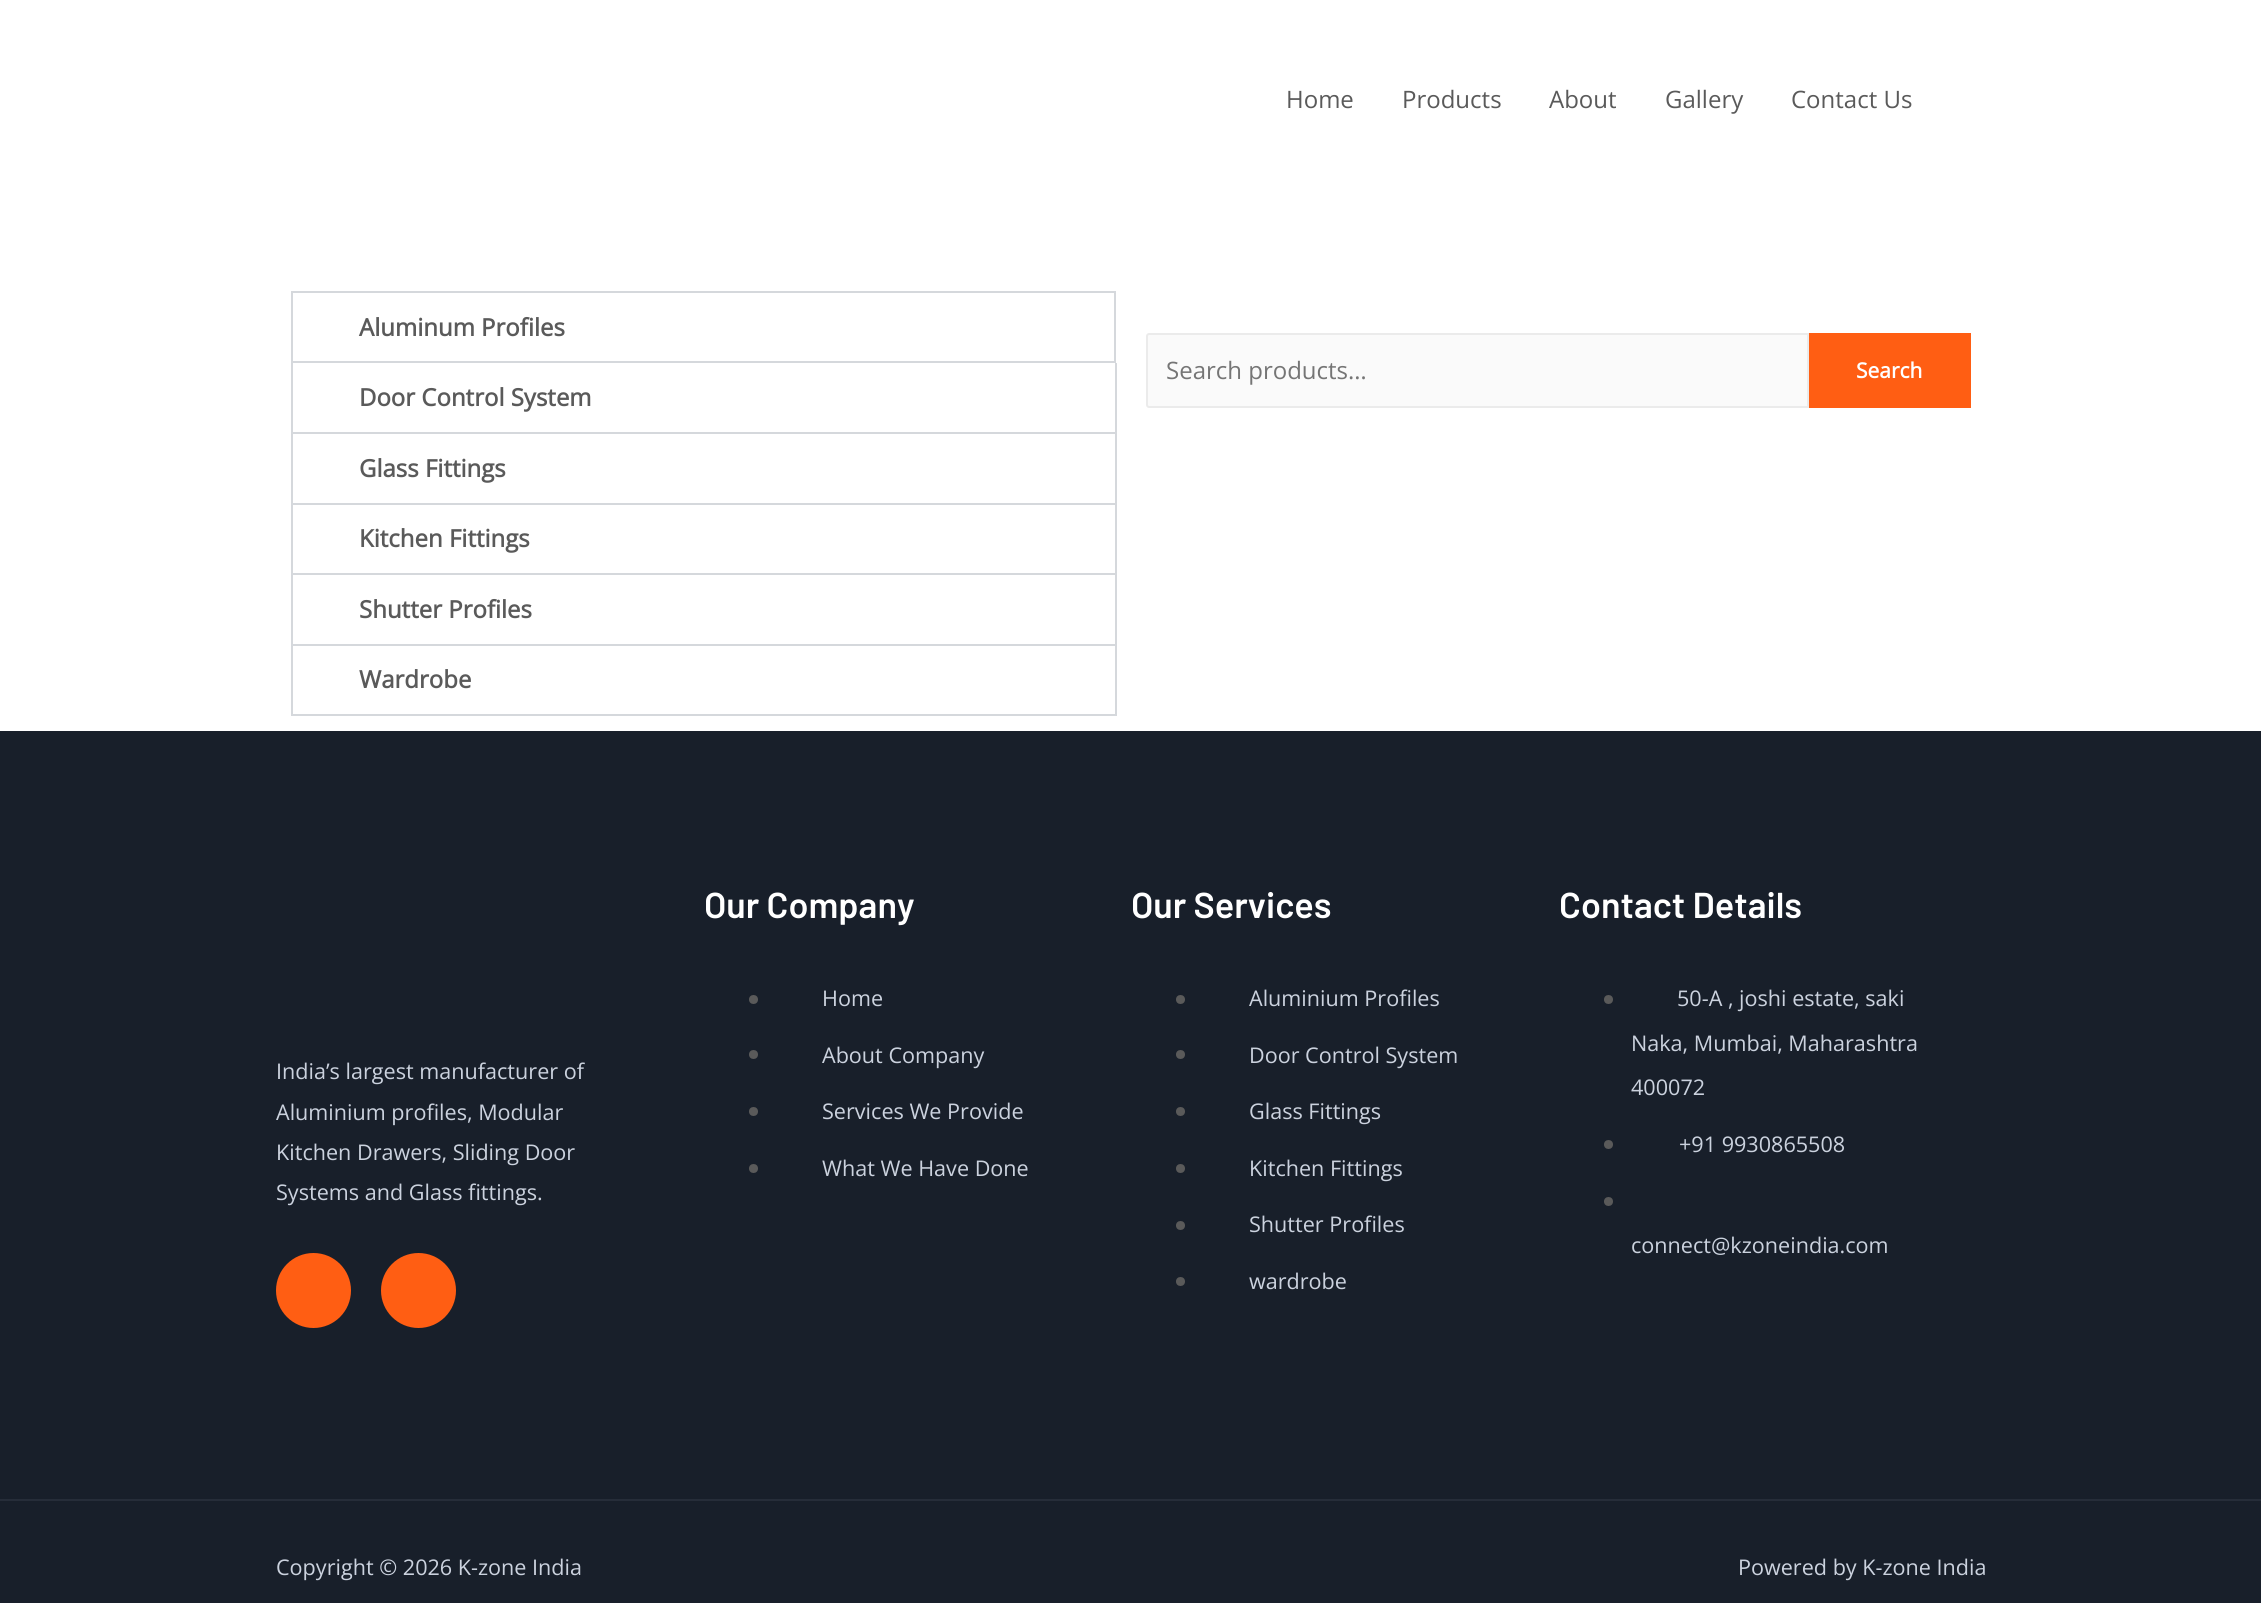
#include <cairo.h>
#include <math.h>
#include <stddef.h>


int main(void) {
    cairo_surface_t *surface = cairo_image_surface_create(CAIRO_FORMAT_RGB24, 2261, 1603);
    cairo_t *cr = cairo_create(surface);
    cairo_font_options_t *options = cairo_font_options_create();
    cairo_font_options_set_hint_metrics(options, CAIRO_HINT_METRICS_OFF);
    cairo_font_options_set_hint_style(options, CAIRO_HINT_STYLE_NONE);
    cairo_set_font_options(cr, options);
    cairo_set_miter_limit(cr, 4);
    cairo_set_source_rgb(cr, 1, 1, 1);
    cairo_paint(cr);
    cairo_select_font_face(cr, "Open Sans", CAIRO_FONT_SLANT_NORMAL, CAIRO_FONT_WEIGHT_NORMAL);
    cairo_set_font_size(cr, 24);
    cairo_set_source_rgb(cr, 0.353, 0.353, 0.353);
    cairo_move_to(cr, 1286, 108);
    cairo_show_text(cr, "Home");
    cairo_move_to(cr, 1402, 108);
    cairo_show_text(cr, "Products");
    cairo_move_to(cr, 1549, 108);
    cairo_show_text(cr, "About");
    cairo_move_to(cr, 1665, 108);
    cairo_show_text(cr, "Gallery");
    cairo_move_to(cr, 1791, 108);
    cairo_show_text(cr, "Contact Us");
    cairo_rectangle(cr, 292, 292, 823, 70);
    cairo_set_source_rgb(cr, 0.835, 0.847, 0.863);
    cairo_stroke(cr);
    cairo_select_font_face(cr, "Open Sans", CAIRO_FONT_SLANT_NORMAL, CAIRO_FONT_WEIGHT_BOLD);
    cairo_set_source_rgb(cr, 0.353, 0.353, 0.353);
    cairo_move_to(cr, 359, 336);
    cairo_show_text(cr, "Aluminum Profiles");
    cairo_set_source_rgb(cr, 0.835, 0.847, 0.863);
    cairo_rectangle(cr, 1115, 363, 2, 141);
    cairo_fill(cr);
    cairo_rectangle(cr, 291, 432, 825, 2);
    cairo_fill(cr);
    cairo_rectangle(cr, 291, 363, 2, 71);
    cairo_fill(cr);
    cairo_set_source_rgb(cr, 0.353, 0.353, 0.353);
    cairo_move_to(cr, 359, 406);
    cairo_show_text(cr, "Door Control System");
    cairo_set_source_rgb(cr, 0.835, 0.847, 0.863);
    cairo_rectangle(cr, 291, 503, 825, 2);
    cairo_fill(cr);
    cairo_rectangle(cr, 291, 434, 2, 70);
    cairo_fill(cr);
    cairo_set_source_rgb(cr, 0.353, 0.353, 0.353);
    cairo_move_to(cr, 359, 477);
    cairo_show_text(cr, "Glass Fittings");
    cairo_set_source_rgb(cr, 0.835, 0.847, 0.863);
    cairo_rectangle(cr, 1115, 504, 2, 141);
    cairo_fill(cr);
    cairo_rectangle(cr, 291, 573, 825, 2);
    cairo_fill(cr);
    cairo_rectangle(cr, 291, 504, 2, 71);
    cairo_fill(cr);
    cairo_set_source_rgb(cr, 0.353, 0.353, 0.353);
    cairo_move_to(cr, 359, 547);
    cairo_show_text(cr, "Kitchen Fittings");
    cairo_set_source_rgb(cr, 0.835, 0.847, 0.863);
    cairo_rectangle(cr, 291, 644, 825, 2);
    cairo_fill(cr);
    cairo_rectangle(cr, 291, 575, 2, 70);
    cairo_fill(cr);
    cairo_set_source_rgb(cr, 0.353, 0.353, 0.353);
    cairo_move_to(cr, 359, 618);
    cairo_show_text(cr, "Shutter Profiles");
    cairo_set_source_rgb(cr, 0.835, 0.847, 0.863);
    cairo_rectangle(cr, 1115, 645, 2, 71);
    cairo_fill(cr);
    cairo_rectangle(cr, 291, 714, 825, 2);
    cairo_fill(cr);
    cairo_rectangle(cr, 291, 645, 2, 71);
    cairo_fill(cr);
    cairo_set_source_rgb(cr, 0.353, 0.353, 0.353);
    cairo_move_to(cr, 359, 688);
    cairo_show_text(cr, "Wardrobe");
    cairo_set_source_rgb(cr, 0.98, 0.98, 0.98);
    cairo_new_path(cr);
    cairo_move_to(cr, 1149, 334);
    cairo_line_to(cr, 1808, 334);
    cairo_line_to(cr, 1808, 407);
    cairo_line_to(cr, 1149, 407);
    cairo_curve_to(cr, 1148, 407, 1147, 406, 1147, 405);
    cairo_line_to(cr, 1147, 336);
    cairo_curve_to(cr, 1147, 335, 1148, 334, 1149, 334);
    cairo_close_path(cr);
    cairo_fill_preserve(cr);
    cairo_set_source_rgb(cr, 0.918, 0.918, 0.918);
    cairo_stroke(cr);
    cairo_select_font_face(cr, "Open Sans", CAIRO_FONT_SLANT_NORMAL, CAIRO_FONT_WEIGHT_NORMAL);
    cairo_set_source_rgb(cr, 0.459, 0.459, 0.459);
    cairo_move_to(cr, 1166, 379);
    cairo_show_text(cr, "Search products…");
    cairo_set_source_rgb(cr, 1, 0.369, 0.078);
    cairo_rectangle(cr, 1809, 333, 162, 75);
    cairo_fill(cr);
    cairo_select_font_face(cr, "Open Sans", CAIRO_FONT_SLANT_NORMAL, CAIRO_FONT_WEIGHT_BOLD);
    cairo_set_font_size(cr, 21);
    cairo_set_source_rgb(cr, 1, 1, 1);
    cairo_move_to(cr, 1856, 378);
    cairo_show_text(cr, "Search");
    cairo_set_source_rgb(cr, 0.094, 0.122, 0.165);
    cairo_rectangle(cr, 0, 731, 2261, 768);
    cairo_fill(cr);
    cairo_select_font_face(cr, "Open Sans", CAIRO_FONT_SLANT_NORMAL, CAIRO_FONT_WEIGHT_NORMAL);
    cairo_set_font_size(cr, 21.6);
    cairo_set_source_rgb(cr, 0.796, 0.824, 0.871);
    cairo_move_to(cr, 276, 1079);
    cairo_show_text(cr, "India’s largest manufacturer of");
    cairo_move_to(cr, 276, 1120);
    cairo_show_text(cr, "Aluminium profiles, Modular");
    cairo_move_to(cr, 276, 1160);
    cairo_show_text(cr, "Kitchen Drawers, Sliding Door");
    cairo_move_to(cr, 276, 1200);
    cairo_show_text(cr, "Systems and Glass fittings.");
    cairo_set_source_rgb(cr, 1, 0.369, 0.078);
    cairo_new_path(cr);
    cairo_arc(cr, 313.5, 1290.5, 37.5, 0, 2 * M_PI);
    cairo_fill(cr);
    cairo_arc(cr, 418.5, 1290.5, 37.5, 0, 2 * M_PI);
    cairo_fill(cr);
    cairo_select_font_face(cr, "Barlow SemiBold", CAIRO_FONT_SLANT_NORMAL, CAIRO_FONT_WEIGHT_NORMAL);
    cairo_set_font_size(cr, 36);
    cairo_set_source_rgb(cr, 1, 1, 1);
    cairo_move_to(cr, 704, 918);
    cairo_show_text(cr, "Our Company");
    cairo_set_source_rgb(cr, 0.353, 0.353, 0.353);
    cairo_new_path(cr);
    cairo_arc(cr, 753.5, 999.5, 4.5, 0, 2 * M_PI);
    cairo_fill(cr);
    cairo_select_font_face(cr, "Open Sans", CAIRO_FONT_SLANT_NORMAL, CAIRO_FONT_WEIGHT_NORMAL);
    cairo_set_font_size(cr, 21.6);
    cairo_set_source_rgb(cr, 0.796, 0.824, 0.871);
    cairo_move_to(cr, 822, 1006);
    cairo_show_text(cr, "Home");
    cairo_set_source_rgb(cr, 0.353, 0.353, 0.353);
    cairo_new_path(cr);
    cairo_arc(cr, 753.5, 1054.5, 4.5, 0, 2 * M_PI);
    cairo_fill(cr);
    cairo_set_source_rgb(cr, 0.796, 0.824, 0.871);
    cairo_move_to(cr, 822, 1063);
    cairo_show_text(cr, "About Company");
    cairo_set_source_rgb(cr, 0.353, 0.353, 0.353);
    cairo_new_path(cr);
    cairo_arc(cr, 753.5, 1111.5, 4.5, 0, 2 * M_PI);
    cairo_fill(cr);
    cairo_set_source_rgb(cr, 0.796, 0.824, 0.871);
    cairo_move_to(cr, 822, 1119);
    cairo_show_text(cr, "Services We Provide");
    cairo_set_source_rgb(cr, 0.353, 0.353, 0.353);
    cairo_new_path(cr);
    cairo_arc(cr, 753.5, 1168.5, 4.5, 0, 2 * M_PI);
    cairo_fill(cr);
    cairo_set_source_rgb(cr, 0.796, 0.824, 0.871);
    cairo_move_to(cr, 822, 1176);
    cairo_show_text(cr, "What We Have Done");
    cairo_select_font_face(cr, "Barlow SemiBold", CAIRO_FONT_SLANT_NORMAL, CAIRO_FONT_WEIGHT_NORMAL);
    cairo_set_font_size(cr, 36);
    cairo_set_source_rgb(cr, 1, 1, 1);
    cairo_move_to(cr, 1131, 918);
    cairo_show_text(cr, "Our Services");
    cairo_set_source_rgb(cr, 0.353, 0.353, 0.353);
    cairo_new_path(cr);
    cairo_arc(cr, 1180.5, 999.5, 4.5, 0, 2 * M_PI);
    cairo_fill(cr);
    cairo_select_font_face(cr, "Open Sans", CAIRO_FONT_SLANT_NORMAL, CAIRO_FONT_WEIGHT_NORMAL);
    cairo_set_font_size(cr, 21.6);
    cairo_set_source_rgb(cr, 0.796, 0.824, 0.871);
    cairo_move_to(cr, 1249, 1006);
    cairo_show_text(cr, "Aluminium Profiles");
    cairo_set_source_rgb(cr, 0.353, 0.353, 0.353);
    cairo_new_path(cr);
    cairo_arc(cr, 1180.5, 1054.5, 4.5, 0, 2 * M_PI);
    cairo_fill(cr);
    cairo_set_source_rgb(cr, 0.796, 0.824, 0.871);
    cairo_move_to(cr, 1249, 1063);
    cairo_show_text(cr, "Door Control System");
    cairo_set_source_rgb(cr, 0.353, 0.353, 0.353);
    cairo_new_path(cr);
    cairo_arc(cr, 1180.5, 1111.5, 4.5, 0, 2 * M_PI);
    cairo_fill(cr);
    cairo_set_source_rgb(cr, 0.796, 0.824, 0.871);
    cairo_move_to(cr, 1249, 1119);
    cairo_show_text(cr, "Glass Fittings");
    cairo_set_source_rgb(cr, 0.353, 0.353, 0.353);
    cairo_new_path(cr);
    cairo_arc(cr, 1180.5, 1168.5, 4.5, 0, 2 * M_PI);
    cairo_fill(cr);
    cairo_set_source_rgb(cr, 0.796, 0.824, 0.871);
    cairo_move_to(cr, 1249, 1176);
    cairo_show_text(cr, "Kitchen Fittings");
    cairo_set_source_rgb(cr, 0.353, 0.353, 0.353);
    cairo_new_path(cr);
    cairo_arc(cr, 1180.5, 1225.5, 4.5, 0, 2 * M_PI);
    cairo_fill(cr);
    cairo_set_source_rgb(cr, 0.796, 0.824, 0.871);
    cairo_move_to(cr, 1249, 1232);
    cairo_show_text(cr, "Shutter Profiles");
    cairo_set_source_rgb(cr, 0.353, 0.353, 0.353);
    cairo_new_path(cr);
    cairo_arc(cr, 1180.5, 1281.5, 4.5, 0, 2 * M_PI);
    cairo_fill(cr);
    cairo_set_source_rgb(cr, 0.796, 0.824, 0.871);
    cairo_move_to(cr, 1249, 1289);
    cairo_show_text(cr, "wardrobe");
    cairo_select_font_face(cr, "Barlow SemiBold", CAIRO_FONT_SLANT_NORMAL, CAIRO_FONT_WEIGHT_NORMAL);
    cairo_set_font_size(cr, 36);
    cairo_set_source_rgb(cr, 1, 1, 1);
    cairo_move_to(cr, 1559, 918);
    cairo_show_text(cr, "Contact Details");
    cairo_set_source_rgb(cr, 0.353, 0.353, 0.353);
    cairo_new_path(cr);
    cairo_arc(cr, 1608.5, 999.5, 4.5, 0, 2 * M_PI);
    cairo_fill(cr);
    cairo_select_font_face(cr, "Open Sans", CAIRO_FONT_SLANT_NORMAL, CAIRO_FONT_WEIGHT_NORMAL);
    cairo_set_font_size(cr, 21.6);
    cairo_set_source_rgb(cr, 0.796, 0.824, 0.871);
    cairo_move_to(cr, 1677, 1006);
    cairo_show_text(cr, "50-A , joshi estate, saki");
    cairo_move_to(cr, 1631, 1051);
    cairo_show_text(cr, "Naka, Mumbai, Maharashtra");
    cairo_move_to(cr, 1631, 1095);
    cairo_show_text(cr, "400072");
    cairo_set_source_rgb(cr, 0.353, 0.353, 0.353);
    cairo_new_path(cr);
    cairo_arc(cr, 1608.5, 1144.5, 4.5, 0, 2 * M_PI);
    cairo_fill(cr);
    cairo_set_source_rgb(cr, 0.796, 0.824, 0.871);
    cairo_move_to(cr, 1679, 1152);
    cairo_show_text(cr, "+91 9930865508");
    cairo_set_source_rgb(cr, 0.353, 0.353, 0.353);
    cairo_new_path(cr);
    cairo_arc(cr, 1608.5, 1201.5, 4.5, 0, 2 * M_PI);
    cairo_fill(cr);
    cairo_set_source_rgb(cr, 0.796, 0.824, 0.871);
    cairo_move_to(cr, 1631, 1253);
    cairo_show_text(cr, "connect@kzoneindia.com");
    cairo_set_source_rgb(cr, 0.094, 0.122, 0.165);
    cairo_rectangle(cr, 0, 1501, 2261, 102);
    cairo_fill(cr);
    cairo_set_source_rgb(cr, 0.149, 0.176, 0.224);
    cairo_rectangle(cr, 0, 1499, 2261, 2);
    cairo_fill(cr);
    cairo_set_source_rgb(cr, 0.796, 0.824, 0.871);
    cairo_move_to(cr, 276, 1575);
    cairo_show_text(cr, "Copyright © 2026 K-zone India");
    cairo_move_to(cr, 1738, 1575);
    cairo_show_text(cr, "Powered by K-zone India");
    cairo_surface_write_to_png(surface, "page.png");
    cairo_font_options_destroy(options);
    cairo_destroy(cr);
    cairo_surface_destroy(surface);
    return 0;
}
